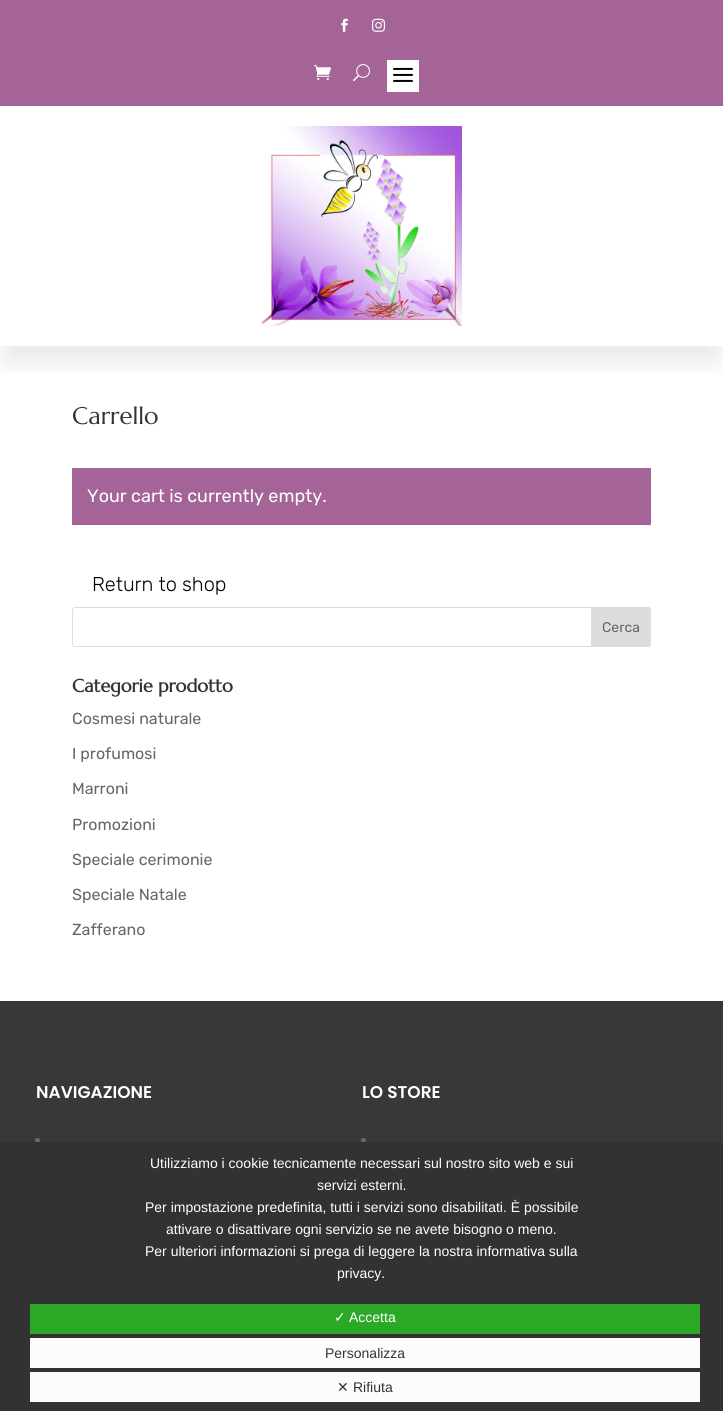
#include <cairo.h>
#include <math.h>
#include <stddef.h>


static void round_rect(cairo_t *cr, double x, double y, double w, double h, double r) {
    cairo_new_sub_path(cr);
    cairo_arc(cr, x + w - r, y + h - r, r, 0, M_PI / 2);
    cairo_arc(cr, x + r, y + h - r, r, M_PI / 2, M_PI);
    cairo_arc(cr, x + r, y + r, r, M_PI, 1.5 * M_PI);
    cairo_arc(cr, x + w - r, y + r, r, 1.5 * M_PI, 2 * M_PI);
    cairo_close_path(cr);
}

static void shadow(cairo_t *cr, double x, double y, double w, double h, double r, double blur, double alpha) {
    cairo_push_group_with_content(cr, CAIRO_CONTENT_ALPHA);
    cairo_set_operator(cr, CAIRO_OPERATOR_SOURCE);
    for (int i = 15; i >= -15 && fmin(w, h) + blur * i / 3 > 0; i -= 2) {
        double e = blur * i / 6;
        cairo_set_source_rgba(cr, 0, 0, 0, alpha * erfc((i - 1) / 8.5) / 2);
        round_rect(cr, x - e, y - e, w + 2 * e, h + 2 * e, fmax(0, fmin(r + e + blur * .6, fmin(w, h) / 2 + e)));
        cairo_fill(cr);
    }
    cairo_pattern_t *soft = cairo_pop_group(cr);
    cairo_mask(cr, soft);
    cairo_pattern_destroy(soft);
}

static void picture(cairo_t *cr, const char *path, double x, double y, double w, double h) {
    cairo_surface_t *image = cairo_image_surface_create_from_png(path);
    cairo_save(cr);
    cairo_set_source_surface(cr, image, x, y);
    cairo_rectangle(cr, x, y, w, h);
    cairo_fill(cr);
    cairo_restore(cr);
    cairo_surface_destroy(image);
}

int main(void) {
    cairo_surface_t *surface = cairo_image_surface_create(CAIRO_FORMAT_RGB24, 723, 1411);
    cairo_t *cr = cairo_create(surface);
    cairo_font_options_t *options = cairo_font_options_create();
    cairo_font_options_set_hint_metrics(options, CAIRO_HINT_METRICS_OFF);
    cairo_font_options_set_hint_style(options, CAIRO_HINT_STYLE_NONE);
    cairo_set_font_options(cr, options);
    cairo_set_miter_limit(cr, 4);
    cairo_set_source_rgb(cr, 1, 1, 1);
    cairo_paint(cr);
    cairo_save(cr);
    cairo_rectangle(cr, 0, 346, 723, 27);
    cairo_clip(cr);
    cairo_set_source_rgb(cr, 0, 0, 0);
    shadow(cr, 6, 26, 711, 334, 0, 15, 0.1);
    cairo_restore(cr);
    cairo_set_source_rgb(cr, 0.643, 0.392, 0.592);
    cairo_rectangle(cr, 0, 0, 723, 106);
    cairo_fill(cr);
    picture(cr, "img1.png", 341, 18, 7, 14);
    picture(cr, "img2.png", 372, 18, 13, 14);
    picture(cr, "img3.png", 314, 65, 17, 15);
    picture(cr, "img4.png", 353, 64, 17, 18);
    cairo_set_source_rgb(cr, 1, 1, 1);
    cairo_rectangle(cr, 387, 60, 32, 32);
    cairo_fill(cr);
    picture(cr, "img5.png", 393, 67, 20, 15);
    picture(cr, "img6.png", 262, 126, 200, 200);
    cairo_select_font_face(cr, "Marcellus", CAIRO_FONT_SLANT_NORMAL, CAIRO_FONT_WEIGHT_NORMAL);
    cairo_set_font_size(cr, 24);
    cairo_set_source_rgb(cr, 0.2, 0.2, 0.2);
    cairo_move_to(cr, 72, 424);
    cairo_show_text(cr, "Carrello");
    cairo_set_source_rgb(cr, 0.643, 0.392, 0.592);
    cairo_rectangle(cr, 72, 468, 579, 57);
    cairo_fill(cr);
    cairo_select_font_face(cr, "Rubik Light", CAIRO_FONT_SLANT_NORMAL, CAIRO_FONT_WEIGHT_NORMAL);
    cairo_set_font_size(cr, 18);
    cairo_set_source_rgb(cr, 1, 1, 1);
    cairo_move_to(cr, 87, 502);
    cairo_show_text(cr, "Your cart is currently empty.");
    cairo_select_font_face(cr, "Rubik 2 Light", CAIRO_FONT_SLANT_NORMAL, CAIRO_FONT_WEIGHT_NORMAL);
    cairo_set_font_size(cr, 20);
    cairo_set_source_rgb(cr, 0, 0, 0);
    cairo_move_to(cr, 92, 591);
    cairo_show_text(cr, "Return to shop");
    round_rect(cr, 72.5, 607.5, 578, 39, 2.5);
    cairo_set_source_rgb(cr, 0.867, 0.867, 0.867);
    cairo_set_line_width(cr, 1);
    cairo_stroke(cr);
    cairo_new_path(cr);
    cairo_move_to(cr, 591.5, 607.5);
    cairo_line_to(cr, 648, 607.5);
    cairo_curve_to(cr, 649.5, 607.5, 650.5, 608.5, 650.5, 610);
    cairo_line_to(cr, 650.5, 644);
    cairo_curve_to(cr, 650.5, 645.5, 649.5, 646.5, 648, 646.5);
    cairo_line_to(cr, 591.5, 646.5);
    cairo_close_path(cr);
    cairo_fill_preserve(cr);
    cairo_stroke(cr);
    cairo_select_font_face(cr, "Rubik Light", CAIRO_FONT_SLANT_NORMAL, CAIRO_FONT_WEIGHT_NORMAL);
    cairo_set_font_size(cr, 14);
    cairo_set_source_rgb(cr, 0.4, 0.4, 0.4);
    cairo_move_to(cr, 602, 632);
    cairo_show_text(cr, "Cerca");
    cairo_select_font_face(cr, "Marcellus", CAIRO_FONT_SLANT_NORMAL, CAIRO_FONT_WEIGHT_BOLD);
    cairo_set_font_size(cr, 18);
    cairo_set_source_rgb(cr, 0.2, 0.2, 0.2);
    cairo_move_to(cr, 72, 692);
    cairo_show_text(cr, "Categorie prodotto");
    cairo_select_font_face(cr, "Rubik Light", CAIRO_FONT_SLANT_NORMAL, CAIRO_FONT_WEIGHT_NORMAL);
    cairo_set_font_size(cr, 16);
    cairo_set_source_rgb(cr, 0.4, 0.4, 0.4);
    cairo_move_to(cr, 72, 724);
    cairo_show_text(cr, "Cosmesi naturale");
    cairo_move_to(cr, 72, 759);
    cairo_show_text(cr, "I profumosi");
    cairo_move_to(cr, 72, 794);
    cairo_show_text(cr, "Marroni");
    cairo_move_to(cr, 72, 830);
    cairo_show_text(cr, "Promozioni");
    cairo_move_to(cr, 72, 865);
    cairo_show_text(cr, "Speciale cerimonie");
    cairo_move_to(cr, 72, 900);
    cairo_show_text(cr, "Speciale Natale");
    cairo_move_to(cr, 72, 935);
    cairo_show_text(cr, "Zafferano");
    cairo_set_source_rgb(cr, 0.22, 0.22, 0.22);
    cairo_rectangle(cr, 0, 1001, 723, 410);
    cairo_fill(cr);
    cairo_select_font_face(cr, "Poppins SemiBold", CAIRO_FONT_SLANT_NORMAL, CAIRO_FONT_WEIGHT_NORMAL);
    cairo_set_font_size(cr, 17);
    cairo_set_source_rgb(cr, 1, 1, 1);
    cairo_move_to(cr, 36, 1098);
    cairo_show_text(cr, "NAVIGAZIONE");
    cairo_set_source_rgb(cr, 0.4, 0.4, 0.4);
    cairo_new_path(cr);
    cairo_arc(cr, 37.5, 1140.5, 2.5, 0, 2 * M_PI);
    cairo_fill(cr);
    cairo_arc(cr, 37.5, 1173.5, 2.5, 0, 2 * M_PI);
    cairo_fill(cr);
    cairo_arc(cr, 37.5, 1206.5, 2.5, 0, 2 * M_PI);
    cairo_fill(cr);
    cairo_arc(cr, 37.5, 1239.5, 2.5, 0, 2 * M_PI);
    cairo_fill(cr);
    cairo_set_source_rgb(cr, 1, 1, 1);
    cairo_move_to(cr, 362, 1098);
    cairo_show_text(cr, "LO STORE");
    cairo_set_source_rgb(cr, 0.4, 0.4, 0.4);
    cairo_new_path(cr);
    cairo_arc(cr, 363.5, 1140.5, 2.5, 0, 2 * M_PI);
    cairo_fill(cr);
    cairo_arc(cr, 363.5, 1173.5, 2.5, 0, 2 * M_PI);
    cairo_fill(cr);
    cairo_arc(cr, 363.5, 1206.5, 2.5, 0, 2 * M_PI);
    cairo_fill(cr);
    cairo_arc(cr, 363.5, 1239.5, 2.5, 0, 2 * M_PI);
    cairo_fill(cr);
    cairo_arc(cr, 363.5, 1272.5, 2.5, 0, 2 * M_PI);
    cairo_fill(cr);
    picture(cr, "img7.png", 367, 1409, 7, 2);
    cairo_set_source_rgba(cr, 0.2, 0.2, 0.2, 0.99);
    cairo_rectangle(cr, 0, 1142, 723, 269);
    cairo_fill(cr);
    cairo_select_font_face(cr, "Liberation Sans", CAIRO_FONT_SLANT_NORMAL, CAIRO_FONT_WEIGHT_NORMAL);
    cairo_set_font_size(cr, 14);
    cairo_set_source_rgb(cr, 1, 1, 1);
    cairo_move_to(cr, 150, 1168);
    cairo_show_text(cr, "Utilizziamo i cookie tecnicamente necessari sul nostro sito web e sui");
    cairo_move_to(cr, 317, 1190);
    cairo_show_text(cr, "servizi esterni.");
    cairo_move_to(cr, 145, 1212);
    cairo_show_text(cr, "Per impostazione predefinita, tutti i servizi sono disabilitati. È possibile");
    cairo_move_to(cr, 166, 1234);
    cairo_show_text(cr, "attivare o disattivare ogni servizio se ne avete bisogno o meno.");
    cairo_move_to(cr, 145, 1256);
    cairo_show_text(cr, "Per ulteriori informazioni si prega di leggere la nostra informativa sulla");
    cairo_move_to(cr, 337, 1278);
    cairo_show_text(cr, "privacy.");
    cairo_set_source_rgb(cr, 0.173, 0.659, 0.153);
    cairo_rectangle(cr, 30, 1304, 670, 30);
    cairo_fill(cr);
    cairo_select_font_face(cr, "DejaVu Sans", CAIRO_FONT_SLANT_NORMAL, CAIRO_FONT_WEIGHT_NORMAL);
    cairo_set_source_rgb(cr, 1, 1, 1);
    cairo_move_to(cr, 334, 1322);
    cairo_show_text(cr, "✓");
    cairo_select_font_face(cr, "Liberation Sans", CAIRO_FONT_SLANT_NORMAL, CAIRO_FONT_WEIGHT_NORMAL);
    cairo_move_to(cr, 349, 1322);
    cairo_show_text(cr, "Accetta");
    cairo_set_source_rgb(cr, 0.988, 0.988, 0.988);
    cairo_rectangle(cr, 30, 1338, 670, 30);
    cairo_fill(cr);
    cairo_set_source_rgb(cr, 0.2, 0.2, 0.2);
    cairo_move_to(cr, 325, 1358);
    cairo_show_text(cr, "Personalizza");
    cairo_set_source_rgb(cr, 0.988, 0.988, 0.988);
    cairo_rectangle(cr, 30, 1372, 670, 30);
    cairo_fill(cr);
    cairo_select_font_face(cr, "DejaVu Sans", CAIRO_FONT_SLANT_NORMAL, CAIRO_FONT_WEIGHT_NORMAL);
    cairo_set_source_rgb(cr, 0.2, 0.2, 0.2);
    cairo_move_to(cr, 337, 1392);
    cairo_show_text(cr, "✕");
    cairo_select_font_face(cr, "Liberation Sans", CAIRO_FONT_SLANT_NORMAL, CAIRO_FONT_WEIGHT_NORMAL);
    cairo_move_to(cr, 353, 1392);
    cairo_show_text(cr, "Rifiuta");
    cairo_surface_write_to_png(surface, "page.png");
    cairo_font_options_destroy(options);
    cairo_destroy(cr);
    cairo_surface_destroy(surface);
    return 0;
}
